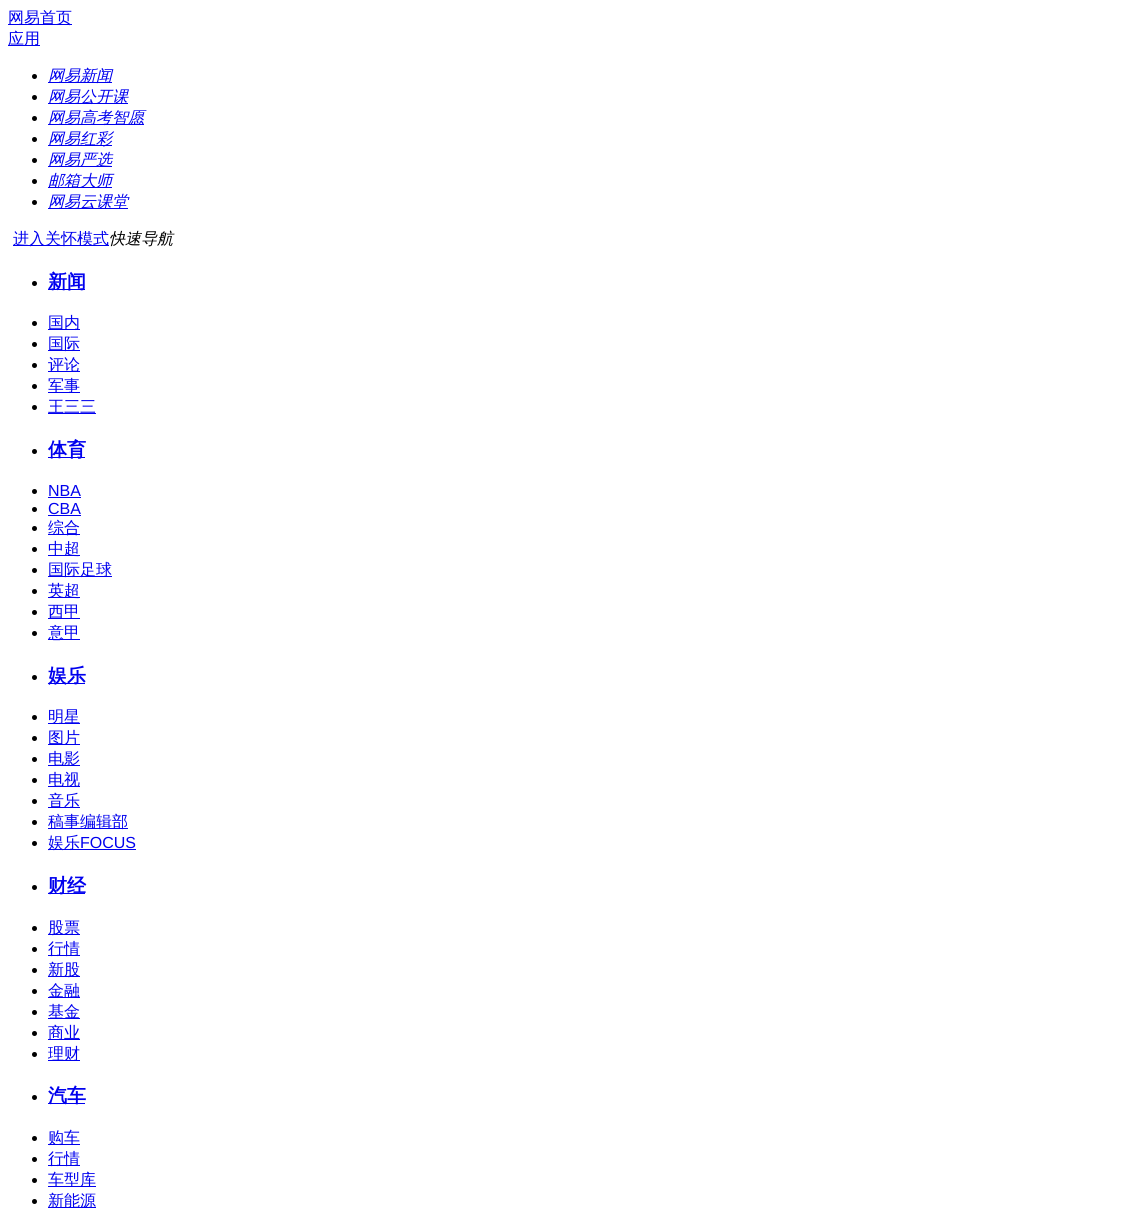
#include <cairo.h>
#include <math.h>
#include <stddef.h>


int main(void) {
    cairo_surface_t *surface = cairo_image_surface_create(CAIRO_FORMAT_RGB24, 1126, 1216);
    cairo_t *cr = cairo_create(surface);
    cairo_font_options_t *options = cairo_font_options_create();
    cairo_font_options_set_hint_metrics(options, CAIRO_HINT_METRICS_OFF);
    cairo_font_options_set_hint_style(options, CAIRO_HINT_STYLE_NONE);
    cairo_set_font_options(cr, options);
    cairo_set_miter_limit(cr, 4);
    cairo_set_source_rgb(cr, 1, 1, 1);
    cairo_paint(cr);
    cairo_set_source_rgb(cr, 0, 0, 0.933);
    cairo_rectangle(cr, 8, 24, 64, 1);
    cairo_fill(cr);
    cairo_select_font_face(cr, "WenQuanYi Zen Hei Medium", CAIRO_FONT_SLANT_NORMAL, CAIRO_FONT_WEIGHT_NORMAL);
    cairo_set_font_size(cr, 16);
    cairo_move_to(cr, 8, 23);
    cairo_show_text(cr, "网易首页");
    cairo_rectangle(cr, 8, 45, 32, 1);
    cairo_fill(cr);
    cairo_move_to(cr, 8, 44);
    cairo_show_text(cr, "应用");
    cairo_set_source_rgb(cr, 0, 0, 0);
    cairo_new_path(cr);
    cairo_arc(cr, 34.5, 76.5, 2.5, 0, 2 * M_PI);
    cairo_fill(cr);
    cairo_set_source_rgb(cr, 0, 0, 0.933);
    cairo_rectangle(cr, 48, 82, 64, 1);
    cairo_fill(cr);
    cairo_select_font_face(cr, "WenQuanYi Zen Hei Medium", CAIRO_FONT_SLANT_ITALIC, CAIRO_FONT_WEIGHT_NORMAL);
    cairo_move_to(cr, 48, 81);
    cairo_show_text(cr, "网易新闻");
    cairo_set_source_rgb(cr, 0, 0, 0);
    cairo_new_path(cr);
    cairo_arc(cr, 34.5, 97.5, 2.5, 0, 2 * M_PI);
    cairo_fill(cr);
    cairo_set_source_rgb(cr, 0, 0, 0.933);
    cairo_rectangle(cr, 48, 103, 80, 1);
    cairo_fill(cr);
    cairo_move_to(cr, 48, 102);
    cairo_show_text(cr, "网易公开课");
    cairo_set_source_rgb(cr, 0, 0, 0);
    cairo_new_path(cr);
    cairo_arc(cr, 34.5, 118.5, 2.5, 0, 2 * M_PI);
    cairo_fill(cr);
    cairo_set_source_rgb(cr, 0, 0, 0.933);
    cairo_rectangle(cr, 48, 124, 96, 1);
    cairo_fill(cr);
    cairo_move_to(cr, 48, 123);
    cairo_show_text(cr, "网易高考智愿");
    cairo_set_source_rgb(cr, 0, 0, 0);
    cairo_new_path(cr);
    cairo_arc(cr, 34.5, 139.5, 2.5, 0, 2 * M_PI);
    cairo_fill(cr);
    cairo_set_source_rgb(cr, 0, 0, 0.933);
    cairo_rectangle(cr, 48, 145, 64, 1);
    cairo_fill(cr);
    cairo_move_to(cr, 48, 144);
    cairo_show_text(cr, "网易红彩");
    cairo_set_source_rgb(cr, 0, 0, 0);
    cairo_new_path(cr);
    cairo_arc(cr, 34.5, 160.5, 2.5, 0, 2 * M_PI);
    cairo_fill(cr);
    cairo_set_source_rgb(cr, 0, 0, 0.933);
    cairo_rectangle(cr, 48, 166, 64, 1);
    cairo_fill(cr);
    cairo_move_to(cr, 48, 165);
    cairo_show_text(cr, "网易严选");
    cairo_set_source_rgb(cr, 0, 0, 0);
    cairo_new_path(cr);
    cairo_arc(cr, 34.5, 181.5, 2.5, 0, 2 * M_PI);
    cairo_fill(cr);
    cairo_set_source_rgb(cr, 0, 0, 0.933);
    cairo_rectangle(cr, 48, 187, 64, 1);
    cairo_fill(cr);
    cairo_move_to(cr, 48, 186);
    cairo_show_text(cr, "邮箱大师");
    cairo_set_source_rgb(cr, 0, 0, 0);
    cairo_new_path(cr);
    cairo_arc(cr, 34.5, 202.5, 2.5, 0, 2 * M_PI);
    cairo_fill(cr);
    cairo_set_source_rgb(cr, 0, 0, 0.933);
    cairo_rectangle(cr, 48, 208, 80, 1);
    cairo_fill(cr);
    cairo_move_to(cr, 48, 207);
    cairo_show_text(cr, "网易云课堂");
    cairo_rectangle(cr, 13, 245, 96, 1);
    cairo_fill(cr);
    cairo_select_font_face(cr, "WenQuanYi Zen Hei Medium", CAIRO_FONT_SLANT_NORMAL, CAIRO_FONT_WEIGHT_NORMAL);
    cairo_move_to(cr, 13, 244);
    cairo_show_text(cr, "进入关怀模式");
    cairo_select_font_face(cr, "WenQuanYi Zen Hei Medium", CAIRO_FONT_SLANT_ITALIC, CAIRO_FONT_WEIGHT_NORMAL);
    cairo_set_source_rgb(cr, 0, 0, 0);
    cairo_move_to(cr, 109, 244);
    cairo_show_text(cr, "快速导航");
    cairo_new_path(cr);
    cairo_arc(cr, 34.5, 283.5, 2.5, 0, 2 * M_PI);
    cairo_fill(cr);
    cairo_set_source_rgb(cr, 0, 0, 0.933);
    cairo_rectangle(cr, 48, 289, 37, 1);
    cairo_fill(cr);
    cairo_select_font_face(cr, "WenQuanYi Zen Hei", CAIRO_FONT_SLANT_NORMAL, CAIRO_FONT_WEIGHT_BOLD);
    cairo_set_font_size(cr, 19);
    cairo_move_to(cr, 48, 288);
    cairo_show_text(cr, "新闻");
    cairo_set_source_rgb(cr, 0, 0, 0);
    cairo_new_path(cr);
    cairo_arc(cr, 34.5, 323.5, 2.5, 0, 2 * M_PI);
    cairo_fill(cr);
    cairo_set_source_rgb(cr, 0, 0, 0.933);
    cairo_rectangle(cr, 48, 329, 32, 1);
    cairo_fill(cr);
    cairo_select_font_face(cr, "WenQuanYi Zen Hei Medium", CAIRO_FONT_SLANT_NORMAL, CAIRO_FONT_WEIGHT_NORMAL);
    cairo_set_font_size(cr, 16);
    cairo_move_to(cr, 48, 328);
    cairo_show_text(cr, "国内");
    cairo_set_source_rgb(cr, 0, 0, 0);
    cairo_new_path(cr);
    cairo_arc(cr, 34.5, 344.5, 2.5, 0, 2 * M_PI);
    cairo_fill(cr);
    cairo_set_source_rgb(cr, 0, 0, 0.933);
    cairo_rectangle(cr, 48, 350, 32, 1);
    cairo_fill(cr);
    cairo_move_to(cr, 48, 349);
    cairo_show_text(cr, "国际");
    cairo_set_source_rgb(cr, 0, 0, 0);
    cairo_new_path(cr);
    cairo_arc(cr, 34.5, 365.5, 2.5, 0, 2 * M_PI);
    cairo_fill(cr);
    cairo_set_source_rgb(cr, 0, 0, 0.933);
    cairo_rectangle(cr, 48, 371, 32, 1);
    cairo_fill(cr);
    cairo_move_to(cr, 48, 370);
    cairo_show_text(cr, "评论");
    cairo_set_source_rgb(cr, 0, 0, 0);
    cairo_new_path(cr);
    cairo_arc(cr, 34.5, 386.5, 2.5, 0, 2 * M_PI);
    cairo_fill(cr);
    cairo_set_source_rgb(cr, 0, 0, 0.933);
    cairo_rectangle(cr, 48, 392, 32, 1);
    cairo_fill(cr);
    cairo_move_to(cr, 48, 391);
    cairo_show_text(cr, "军事");
    cairo_set_source_rgb(cr, 0, 0, 0);
    cairo_new_path(cr);
    cairo_arc(cr, 34.5, 407.5, 2.5, 0, 2 * M_PI);
    cairo_fill(cr);
    cairo_set_source_rgb(cr, 0, 0, 0.933);
    cairo_move_to(cr, 48, 412);
    cairo_show_text(cr, "王三三");
    cairo_rectangle(cr, 48, 413, 48, 1);
    cairo_fill(cr);
    cairo_set_source_rgb(cr, 0, 0, 0);
    cairo_arc(cr, 34.5, 451.5, 2.5, 0, 2 * M_PI);
    cairo_fill(cr);
    cairo_set_source_rgb(cr, 0, 0, 0.933);
    cairo_rectangle(cr, 48, 457, 37, 1);
    cairo_fill(cr);
    cairo_select_font_face(cr, "WenQuanYi Zen Hei", CAIRO_FONT_SLANT_NORMAL, CAIRO_FONT_WEIGHT_BOLD);
    cairo_set_font_size(cr, 19);
    cairo_move_to(cr, 48, 456);
    cairo_show_text(cr, "体育");
    cairo_set_source_rgb(cr, 0, 0, 0);
    cairo_new_path(cr);
    cairo_arc(cr, 34.5, 491.5, 2.5, 0, 2 * M_PI);
    cairo_fill(cr);
    cairo_select_font_face(cr, "Liberation Sans", CAIRO_FONT_SLANT_NORMAL, CAIRO_FONT_WEIGHT_NORMAL);
    cairo_set_font_size(cr, 16);
    cairo_set_source_rgb(cr, 0, 0, 0.933);
    cairo_move_to(cr, 48, 496);
    cairo_show_text(cr, "NBA");
    cairo_rectangle(cr, 48, 497, 33, 1);
    cairo_fill(cr);
    cairo_set_source_rgb(cr, 0, 0, 0);
    cairo_arc(cr, 34.5, 509.5, 2.5, 0, 2 * M_PI);
    cairo_fill(cr);
    cairo_set_source_rgb(cr, 0, 0, 0.933);
    cairo_move_to(cr, 48, 514);
    cairo_show_text(cr, "CBA");
    cairo_rectangle(cr, 48, 515, 33, 1);
    cairo_fill(cr);
    cairo_set_source_rgb(cr, 0, 0, 0);
    cairo_arc(cr, 34.5, 528.5, 2.5, 0, 2 * M_PI);
    cairo_fill(cr);
    cairo_set_source_rgb(cr, 0, 0, 0.933);
    cairo_rectangle(cr, 48, 534, 32, 1);
    cairo_fill(cr);
    cairo_select_font_face(cr, "WenQuanYi Zen Hei Medium", CAIRO_FONT_SLANT_NORMAL, CAIRO_FONT_WEIGHT_NORMAL);
    cairo_move_to(cr, 48, 533);
    cairo_show_text(cr, "综合");
    cairo_set_source_rgb(cr, 0, 0, 0);
    cairo_new_path(cr);
    cairo_arc(cr, 34.5, 549.5, 2.5, 0, 2 * M_PI);
    cairo_fill(cr);
    cairo_set_source_rgb(cr, 0, 0, 0.933);
    cairo_rectangle(cr, 48, 555, 32, 1);
    cairo_fill(cr);
    cairo_move_to(cr, 48, 554);
    cairo_show_text(cr, "中超");
    cairo_set_source_rgb(cr, 0, 0, 0);
    cairo_new_path(cr);
    cairo_arc(cr, 34.5, 570.5, 2.5, 0, 2 * M_PI);
    cairo_fill(cr);
    cairo_set_source_rgb(cr, 0, 0, 0.933);
    cairo_rectangle(cr, 48, 576, 64, 1);
    cairo_fill(cr);
    cairo_move_to(cr, 48, 575);
    cairo_show_text(cr, "国际足球");
    cairo_set_source_rgb(cr, 0, 0, 0);
    cairo_new_path(cr);
    cairo_arc(cr, 34.5, 591.5, 2.5, 0, 2 * M_PI);
    cairo_fill(cr);
    cairo_set_source_rgb(cr, 0, 0, 0.933);
    cairo_rectangle(cr, 48, 597, 32, 1);
    cairo_fill(cr);
    cairo_move_to(cr, 48, 596);
    cairo_show_text(cr, "英超");
    cairo_set_source_rgb(cr, 0, 0, 0);
    cairo_new_path(cr);
    cairo_arc(cr, 34.5, 612.5, 2.5, 0, 2 * M_PI);
    cairo_fill(cr);
    cairo_set_source_rgb(cr, 0, 0, 0.933);
    cairo_rectangle(cr, 48, 618, 32, 1);
    cairo_fill(cr);
    cairo_move_to(cr, 48, 617);
    cairo_show_text(cr, "西甲");
    cairo_set_source_rgb(cr, 0, 0, 0);
    cairo_new_path(cr);
    cairo_arc(cr, 34.5, 633.5, 2.5, 0, 2 * M_PI);
    cairo_fill(cr);
    cairo_set_source_rgb(cr, 0, 0, 0.933);
    cairo_rectangle(cr, 48, 639, 32, 1);
    cairo_fill(cr);
    cairo_move_to(cr, 48, 638);
    cairo_show_text(cr, "意甲");
    cairo_set_source_rgb(cr, 0, 0, 0);
    cairo_new_path(cr);
    cairo_arc(cr, 34.5, 677.5, 2.5, 0, 2 * M_PI);
    cairo_fill(cr);
    cairo_set_source_rgb(cr, 0, 0, 0.933);
    cairo_rectangle(cr, 48, 683, 37, 1);
    cairo_fill(cr);
    cairo_select_font_face(cr, "WenQuanYi Zen Hei", CAIRO_FONT_SLANT_NORMAL, CAIRO_FONT_WEIGHT_BOLD);
    cairo_set_font_size(cr, 19);
    cairo_move_to(cr, 48, 682);
    cairo_show_text(cr, "娱乐");
    cairo_set_source_rgb(cr, 0, 0, 0);
    cairo_new_path(cr);
    cairo_arc(cr, 34.5, 717.5, 2.5, 0, 2 * M_PI);
    cairo_fill(cr);
    cairo_set_source_rgb(cr, 0, 0, 0.933);
    cairo_rectangle(cr, 48, 723, 32, 1);
    cairo_fill(cr);
    cairo_select_font_face(cr, "WenQuanYi Zen Hei Medium", CAIRO_FONT_SLANT_NORMAL, CAIRO_FONT_WEIGHT_NORMAL);
    cairo_set_font_size(cr, 16);
    cairo_move_to(cr, 48, 722);
    cairo_show_text(cr, "明星");
    cairo_set_source_rgb(cr, 0, 0, 0);
    cairo_new_path(cr);
    cairo_arc(cr, 34.5, 738.5, 2.5, 0, 2 * M_PI);
    cairo_fill(cr);
    cairo_set_source_rgb(cr, 0, 0, 0.933);
    cairo_rectangle(cr, 48, 744, 32, 1);
    cairo_fill(cr);
    cairo_move_to(cr, 48, 743);
    cairo_show_text(cr, "图片");
    cairo_set_source_rgb(cr, 0, 0, 0);
    cairo_new_path(cr);
    cairo_arc(cr, 34.5, 759.5, 2.5, 0, 2 * M_PI);
    cairo_fill(cr);
    cairo_set_source_rgb(cr, 0, 0, 0.933);
    cairo_rectangle(cr, 48, 765, 32, 1);
    cairo_fill(cr);
    cairo_move_to(cr, 48, 764);
    cairo_show_text(cr, "电影");
    cairo_set_source_rgb(cr, 0, 0, 0);
    cairo_new_path(cr);
    cairo_arc(cr, 34.5, 780.5, 2.5, 0, 2 * M_PI);
    cairo_fill(cr);
    cairo_set_source_rgb(cr, 0, 0, 0.933);
    cairo_rectangle(cr, 48, 786, 32, 1);
    cairo_fill(cr);
    cairo_move_to(cr, 48, 785);
    cairo_show_text(cr, "电视");
    cairo_set_source_rgb(cr, 0, 0, 0);
    cairo_new_path(cr);
    cairo_arc(cr, 34.5, 801.5, 2.5, 0, 2 * M_PI);
    cairo_fill(cr);
    cairo_set_source_rgb(cr, 0, 0, 0.933);
    cairo_rectangle(cr, 48, 807, 32, 1);
    cairo_fill(cr);
    cairo_move_to(cr, 48, 806);
    cairo_show_text(cr, "音乐");
    cairo_set_source_rgb(cr, 0, 0, 0);
    cairo_new_path(cr);
    cairo_arc(cr, 34.5, 822.5, 2.5, 0, 2 * M_PI);
    cairo_fill(cr);
    cairo_set_source_rgb(cr, 0, 0, 0.933);
    cairo_rectangle(cr, 48, 828, 80, 1);
    cairo_fill(cr);
    cairo_move_to(cr, 48, 827);
    cairo_show_text(cr, "稿事编辑部");
    cairo_set_source_rgb(cr, 0, 0, 0);
    cairo_new_path(cr);
    cairo_arc(cr, 34.5, 843.5, 2.5, 0, 2 * M_PI);
    cairo_fill(cr);
    cairo_set_source_rgb(cr, 0, 0, 0.933);
    cairo_rectangle(cr, 48, 849, 88, 1);
    cairo_fill(cr);
    cairo_move_to(cr, 48, 848);
    cairo_show_text(cr, "娱乐");
    cairo_select_font_face(cr, "Liberation Sans", CAIRO_FONT_SLANT_NORMAL, CAIRO_FONT_WEIGHT_NORMAL);
    cairo_move_to(cr, 80, 848);
    cairo_show_text(cr, "FOCUS");
    cairo_set_source_rgb(cr, 0, 0, 0);
    cairo_new_path(cr);
    cairo_arc(cr, 34.5, 887.5, 2.5, 0, 2 * M_PI);
    cairo_fill(cr);
    cairo_set_source_rgb(cr, 0, 0, 0.933);
    cairo_rectangle(cr, 48, 893, 37, 1);
    cairo_fill(cr);
    cairo_select_font_face(cr, "WenQuanYi Zen Hei", CAIRO_FONT_SLANT_NORMAL, CAIRO_FONT_WEIGHT_BOLD);
    cairo_set_font_size(cr, 19);
    cairo_move_to(cr, 48, 892);
    cairo_show_text(cr, "财经");
    cairo_set_source_rgb(cr, 0, 0, 0);
    cairo_new_path(cr);
    cairo_arc(cr, 34.5, 928.5, 2.5, 0, 2 * M_PI);
    cairo_fill(cr);
    cairo_set_source_rgb(cr, 0, 0, 0.933);
    cairo_rectangle(cr, 48, 934, 32, 1);
    cairo_fill(cr);
    cairo_select_font_face(cr, "WenQuanYi Zen Hei Medium", CAIRO_FONT_SLANT_NORMAL, CAIRO_FONT_WEIGHT_NORMAL);
    cairo_set_font_size(cr, 16);
    cairo_move_to(cr, 48, 933);
    cairo_show_text(cr, "股票");
    cairo_set_source_rgb(cr, 0, 0, 0);
    cairo_new_path(cr);
    cairo_arc(cr, 34.5, 949.5, 2.5, 0, 2 * M_PI);
    cairo_fill(cr);
    cairo_set_source_rgb(cr, 0, 0, 0.933);
    cairo_rectangle(cr, 48, 955, 32, 1);
    cairo_fill(cr);
    cairo_move_to(cr, 48, 954);
    cairo_show_text(cr, "行情");
    cairo_set_source_rgb(cr, 0, 0, 0);
    cairo_new_path(cr);
    cairo_arc(cr, 34.5, 970.5, 2.5, 0, 2 * M_PI);
    cairo_fill(cr);
    cairo_set_source_rgb(cr, 0, 0, 0.933);
    cairo_rectangle(cr, 48, 976, 32, 1);
    cairo_fill(cr);
    cairo_move_to(cr, 48, 975);
    cairo_show_text(cr, "新股");
    cairo_set_source_rgb(cr, 0, 0, 0);
    cairo_new_path(cr);
    cairo_arc(cr, 34.5, 991.5, 2.5, 0, 2 * M_PI);
    cairo_fill(cr);
    cairo_set_source_rgb(cr, 0, 0, 0.933);
    cairo_rectangle(cr, 48, 997, 32, 1);
    cairo_fill(cr);
    cairo_move_to(cr, 48, 996);
    cairo_show_text(cr, "金融");
    cairo_set_source_rgb(cr, 0, 0, 0);
    cairo_new_path(cr);
    cairo_arc(cr, 34.5, 1012.5, 2.5, 0, 2 * M_PI);
    cairo_fill(cr);
    cairo_set_source_rgb(cr, 0, 0, 0.933);
    cairo_rectangle(cr, 48, 1018, 32, 1);
    cairo_fill(cr);
    cairo_move_to(cr, 48, 1017);
    cairo_show_text(cr, "基金");
    cairo_set_source_rgb(cr, 0, 0, 0);
    cairo_new_path(cr);
    cairo_arc(cr, 34.5, 1033.5, 2.5, 0, 2 * M_PI);
    cairo_fill(cr);
    cairo_set_source_rgb(cr, 0, 0, 0.933);
    cairo_rectangle(cr, 48, 1039, 32, 1);
    cairo_fill(cr);
    cairo_move_to(cr, 48, 1038);
    cairo_show_text(cr, "商业");
    cairo_set_source_rgb(cr, 0, 0, 0);
    cairo_new_path(cr);
    cairo_arc(cr, 34.5, 1054.5, 2.5, 0, 2 * M_PI);
    cairo_fill(cr);
    cairo_set_source_rgb(cr, 0, 0, 0.933);
    cairo_rectangle(cr, 48, 1060, 32, 1);
    cairo_fill(cr);
    cairo_move_to(cr, 48, 1059);
    cairo_show_text(cr, "理财");
    cairo_set_source_rgb(cr, 0, 0, 0);
    cairo_new_path(cr);
    cairo_arc(cr, 34.5, 1097.5, 2.5, 0, 2 * M_PI);
    cairo_fill(cr);
    cairo_set_source_rgb(cr, 0, 0, 0.933);
    cairo_rectangle(cr, 48, 1103, 37, 1);
    cairo_fill(cr);
    cairo_select_font_face(cr, "WenQuanYi Zen Hei", CAIRO_FONT_SLANT_NORMAL, CAIRO_FONT_WEIGHT_BOLD);
    cairo_set_font_size(cr, 19);
    cairo_move_to(cr, 48, 1102);
    cairo_show_text(cr, "汽车");
    cairo_set_source_rgb(cr, 0, 0, 0);
    cairo_new_path(cr);
    cairo_arc(cr, 34.5, 1138.5, 2.5, 0, 2 * M_PI);
    cairo_fill(cr);
    cairo_set_source_rgb(cr, 0, 0, 0.933);
    cairo_rectangle(cr, 48, 1144, 32, 1);
    cairo_fill(cr);
    cairo_select_font_face(cr, "WenQuanYi Zen Hei Medium", CAIRO_FONT_SLANT_NORMAL, CAIRO_FONT_WEIGHT_NORMAL);
    cairo_set_font_size(cr, 16);
    cairo_move_to(cr, 48, 1143);
    cairo_show_text(cr, "购车");
    cairo_set_source_rgb(cr, 0, 0, 0);
    cairo_new_path(cr);
    cairo_arc(cr, 34.5, 1159.5, 2.5, 0, 2 * M_PI);
    cairo_fill(cr);
    cairo_set_source_rgb(cr, 0, 0, 0.933);
    cairo_rectangle(cr, 48, 1165, 32, 1);
    cairo_fill(cr);
    cairo_move_to(cr, 48, 1164);
    cairo_show_text(cr, "行情");
    cairo_set_source_rgb(cr, 0, 0, 0);
    cairo_new_path(cr);
    cairo_arc(cr, 34.5, 1180.5, 2.5, 0, 2 * M_PI);
    cairo_fill(cr);
    cairo_set_source_rgb(cr, 0, 0, 0.933);
    cairo_rectangle(cr, 48, 1186, 48, 1);
    cairo_fill(cr);
    cairo_move_to(cr, 48, 1185);
    cairo_show_text(cr, "车型库");
    cairo_set_source_rgb(cr, 0, 0, 0);
    cairo_new_path(cr);
    cairo_arc(cr, 34.5, 1201.5, 2.5, 0, 2 * M_PI);
    cairo_fill(cr);
    cairo_set_source_rgb(cr, 0, 0, 0.933);
    cairo_rectangle(cr, 48, 1207, 48, 1);
    cairo_fill(cr);
    cairo_move_to(cr, 48, 1206);
    cairo_show_text(cr, "新能源");
    cairo_surface_write_to_png(surface, "page.png");
    cairo_font_options_destroy(options);
    cairo_destroy(cr);
    cairo_surface_destroy(surface);
    return 0;
}
